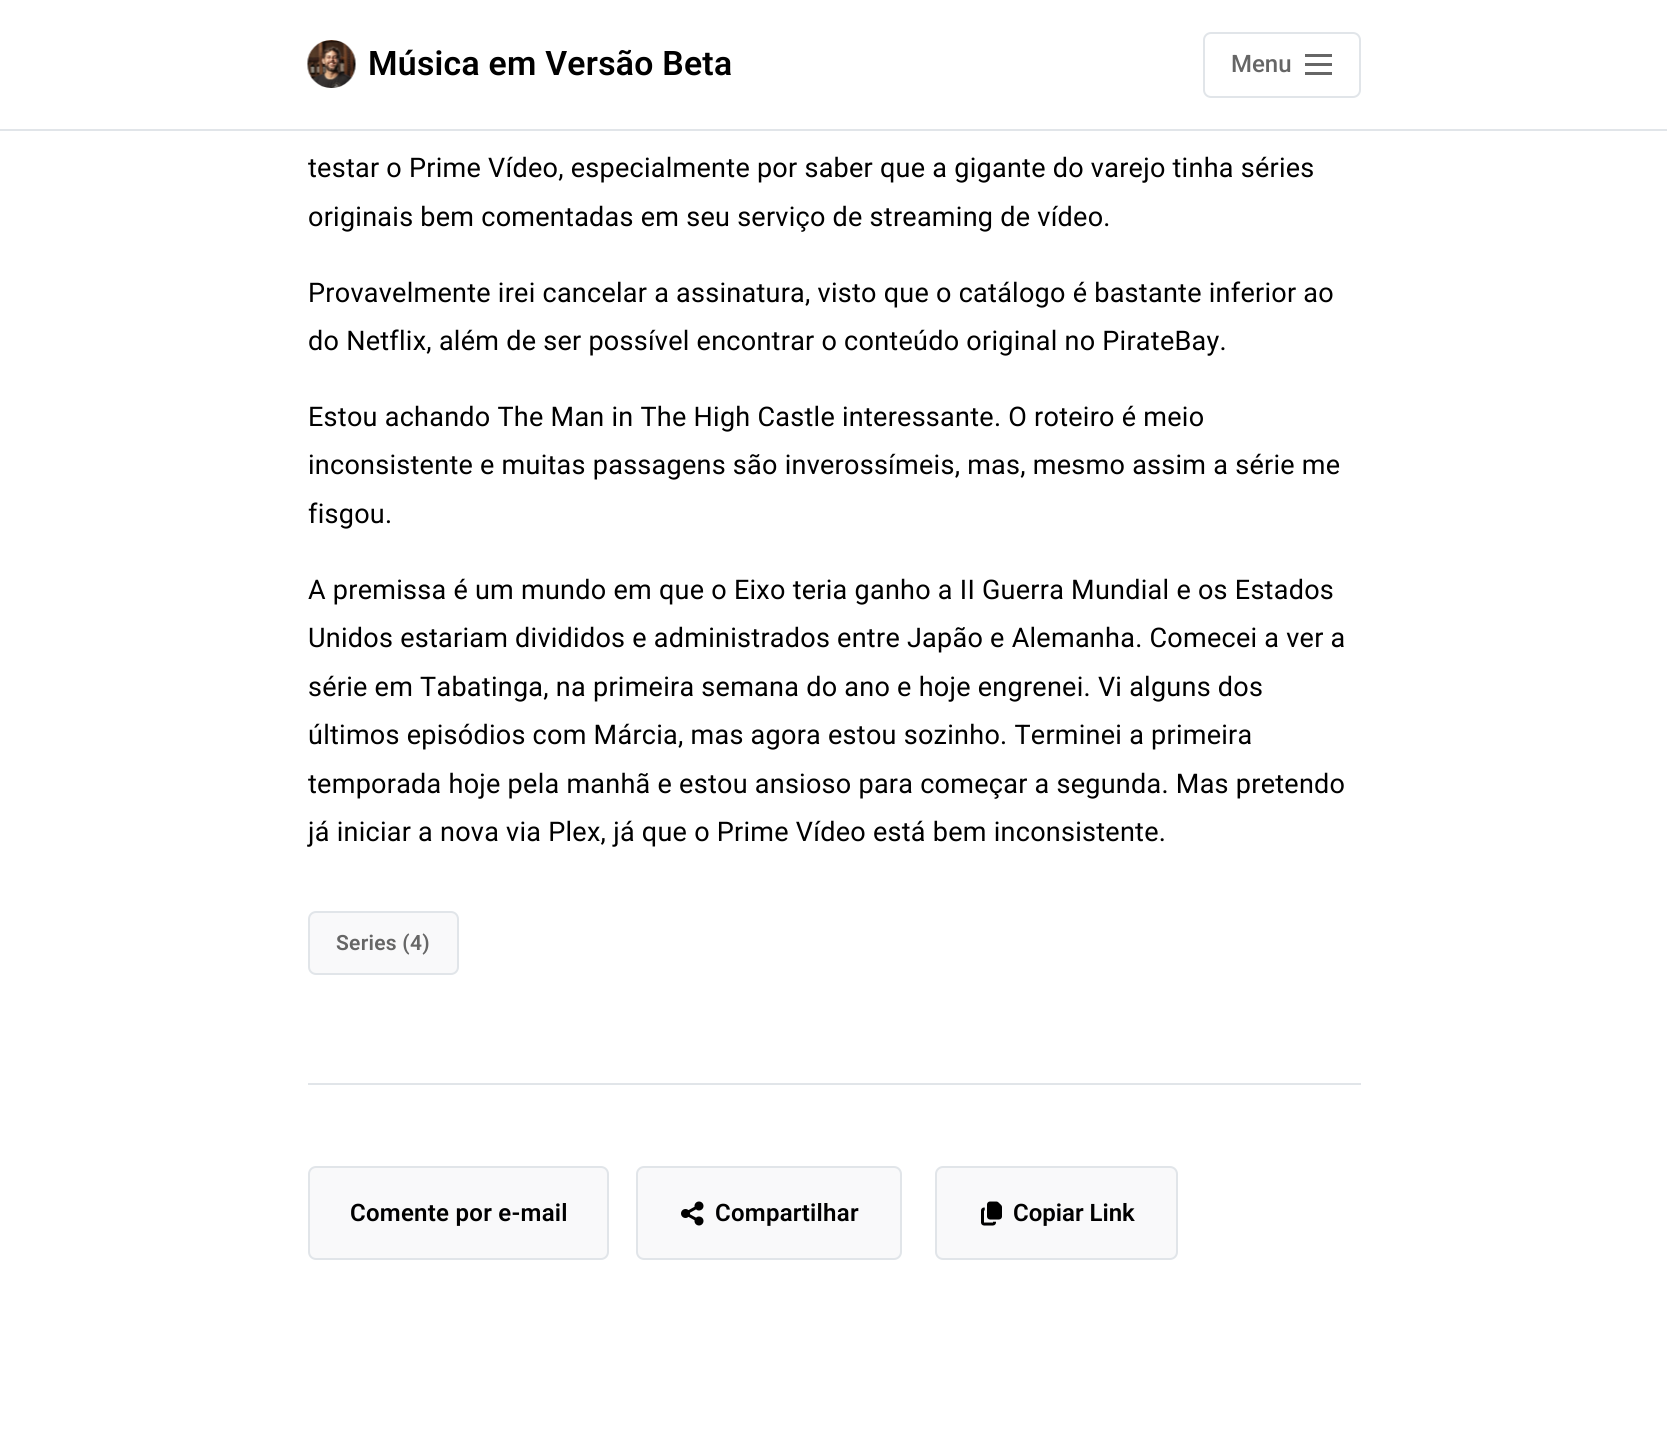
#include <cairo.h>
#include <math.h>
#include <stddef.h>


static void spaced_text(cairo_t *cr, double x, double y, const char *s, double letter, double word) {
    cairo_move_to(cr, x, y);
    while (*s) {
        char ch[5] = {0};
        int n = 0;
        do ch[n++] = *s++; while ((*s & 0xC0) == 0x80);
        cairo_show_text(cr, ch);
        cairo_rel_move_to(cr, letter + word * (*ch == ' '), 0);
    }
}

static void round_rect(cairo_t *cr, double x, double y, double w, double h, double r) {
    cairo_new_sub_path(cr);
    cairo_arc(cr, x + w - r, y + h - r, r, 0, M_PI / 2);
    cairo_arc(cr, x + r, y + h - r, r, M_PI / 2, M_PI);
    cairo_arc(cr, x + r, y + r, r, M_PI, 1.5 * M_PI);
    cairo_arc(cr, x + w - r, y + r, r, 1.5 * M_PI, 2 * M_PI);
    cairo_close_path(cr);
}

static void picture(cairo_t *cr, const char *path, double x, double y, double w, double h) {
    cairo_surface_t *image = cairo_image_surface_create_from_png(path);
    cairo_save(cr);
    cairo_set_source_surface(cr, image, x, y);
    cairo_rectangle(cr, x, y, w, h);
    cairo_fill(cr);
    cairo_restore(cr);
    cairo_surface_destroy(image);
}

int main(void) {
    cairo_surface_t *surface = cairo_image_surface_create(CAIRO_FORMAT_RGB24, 1667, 1445);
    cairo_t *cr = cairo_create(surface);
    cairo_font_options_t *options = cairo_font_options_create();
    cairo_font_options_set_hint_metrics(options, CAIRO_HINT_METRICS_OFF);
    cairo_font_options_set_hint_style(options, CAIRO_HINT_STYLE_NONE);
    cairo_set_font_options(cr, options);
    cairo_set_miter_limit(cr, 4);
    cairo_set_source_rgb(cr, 1, 1, 1);
    cairo_paint(cr);
    cairo_set_source_rgb(cr, 0.882, 0.898, 0.914);
    cairo_rectangle(cr, 0, 129, 1667, 2);
    cairo_fill(cr);
    picture(cr, "img1.png", 307, 40, 49, 48);
    cairo_select_font_face(cr, "Roboto SemiBold", CAIRO_FONT_SLANT_NORMAL, CAIRO_FONT_WEIGHT_NORMAL);
    cairo_set_font_size(cr, 33.75);
    cairo_set_source_rgb(cr, 0, 0, 0);
    spaced_text(cr, 368, 75, "Música em Versão Beta", 0.27, 0);
    round_rect(cr, 1204, 33, 156, 64, 7);
    cairo_set_source_rgb(cr, 0.882, 0.898, 0.914);
    cairo_stroke(cr);
    cairo_select_font_face(cr, "Roboto Medium", CAIRO_FONT_SLANT_NORMAL, CAIRO_FONT_WEIGHT_NORMAL);
    cairo_set_font_size(cr, 24);
    cairo_set_source_rgb(cr, 0.4, 0.4, 0.4);
    cairo_move_to(cr, 1231, 72);
    cairo_show_text(cr, "Menu");
    cairo_rectangle(cr, 1305, 54, 27, 3);
    cairo_fill(cr);
    cairo_rectangle(cr, 1305, 63, 27, 3);
    cairo_fill(cr);
    cairo_rectangle(cr, 1305, 72, 27, 3);
    cairo_fill(cr);
    cairo_select_font_face(cr, "Roboto", CAIRO_FONT_SLANT_NORMAL, CAIRO_FONT_WEIGHT_NORMAL);
    cairo_set_font_size(cr, 27);
    cairo_set_source_rgb(cr, 0, 0, 0);
    spaced_text(cr, 308, 177, "testar o Prime Vídeo, especialmente por saber que a gigante do varejo tinha séries", 0.27, 0);
    spaced_text(cr, 308, 226, "originais bem comentadas em seu serviço de streaming de vídeo.", 0.27, 0);
    spaced_text(cr, 308, 302, "Provavelmente irei cancelar a assinatura, visto que o catálogo é bastante inferior ao", 0.27, 0);
    spaced_text(cr, 308, 350, "do Netflix, além de ser possível encontrar o conteúdo original no PirateBay.", 0.27, 0);
    spaced_text(cr, 308, 426, "Estou achando The Man in The High Castle interessante. O roteiro é meio", 0.27, 0);
    spaced_text(cr, 308, 474, "inconsistente e muitas passagens são inverossímeis, mas, mesmo assim a série me", 0.27, 0);
    spaced_text(cr, 308, 523, "fisgou.", 0.27, 0);
    spaced_text(cr, 308, 599, "A premissa é um mundo em que o Eixo teria ganho a II Guerra Mundial e os Estados", 0.27, 0);
    spaced_text(cr, 308, 647, "Unidos estariam divididos e administrados entre Japão e Alemanha. Comecei a ver a", 0.27, 0);
    spaced_text(cr, 308, 696, "série em Tabatinga, na primeira semana do ano e hoje engrenei. Vi alguns dos", 0.27, 0);
    spaced_text(cr, 308, 744, "últimos episódios com Márcia, mas agora estou sozinho. Terminei a primeira", 0.27, 0);
    spaced_text(cr, 308, 793, "temporada hoje pela manhã e estou ansioso para começar a segunda. Mas pretendo", 0.27, 0);
    spaced_text(cr, 308, 841, "já iniciar a nova via Plex, já que o Prime Vídeo está bem inconsistente.", 0.27, 0);
    cairo_set_source_rgb(cr, 0.973, 0.976, 0.98);
    round_rect(cr, 309, 912, 149, 62, 7);
    cairo_fill_preserve(cr);
    cairo_set_source_rgb(cr, 0.882, 0.898, 0.914);
    cairo_stroke(cr);
    cairo_select_font_face(cr, "Roboto SemiBold", CAIRO_FONT_SLANT_NORMAL, CAIRO_FONT_WEIGHT_NORMAL);
    cairo_set_font_size(cr, 21);
    cairo_set_source_rgb(cr, 0.4, 0.4, 0.4);
    spaced_text(cr, 336, 950, "Series (4)", 0.27, 0);
    cairo_set_source_rgb(cr, 0.882, 0.898, 0.914);
    cairo_rectangle(cr, 308, 1083, 1053, 2);
    cairo_fill(cr);
    cairo_set_source_rgb(cr, 0.973, 0.976, 0.98);
    round_rect(cr, 309, 1167, 299, 92, 7);
    cairo_fill_preserve(cr);
    cairo_set_source_rgb(cr, 0.882, 0.898, 0.914);
    cairo_stroke(cr);
    cairo_set_font_size(cr, 24);
    cairo_set_source_rgb(cr, 0, 0, 0);
    spaced_text(cr, 350, 1221, "Comente por e-mail", 0.27, 0);
    cairo_set_source_rgb(cr, 0.973, 0.976, 0.98);
    round_rect(cr, 637, 1167, 264, 92, 7);
    cairo_fill_preserve(cr);
    cairo_set_source_rgb(cr, 0.882, 0.898, 0.914);
    cairo_stroke(cr);
    picture(cr, "img2.png", 681, 1201, 23, 25);
    cairo_set_source_rgb(cr, 0, 0, 0);
    spaced_text(cr, 715, 1221, "Compartilhar", 0.27, 0);
    cairo_set_source_rgb(cr, 0.973, 0.976, 0.98);
    round_rect(cr, 936, 1167, 241, 92, 7);
    cairo_fill_preserve(cr);
    cairo_set_source_rgb(cr, 0.882, 0.898, 0.914);
    cairo_stroke(cr);
    picture(cr, "img3.png", 981, 1201, 21, 25);
    cairo_set_source_rgb(cr, 0, 0, 0);
    cairo_move_to(cr, 1013, 1221);
    cairo_show_text(cr, "Copiar Link");
    cairo_surface_write_to_png(surface, "page.png");
    cairo_font_options_destroy(options);
    cairo_destroy(cr);
    cairo_surface_destroy(surface);
    return 0;
}
